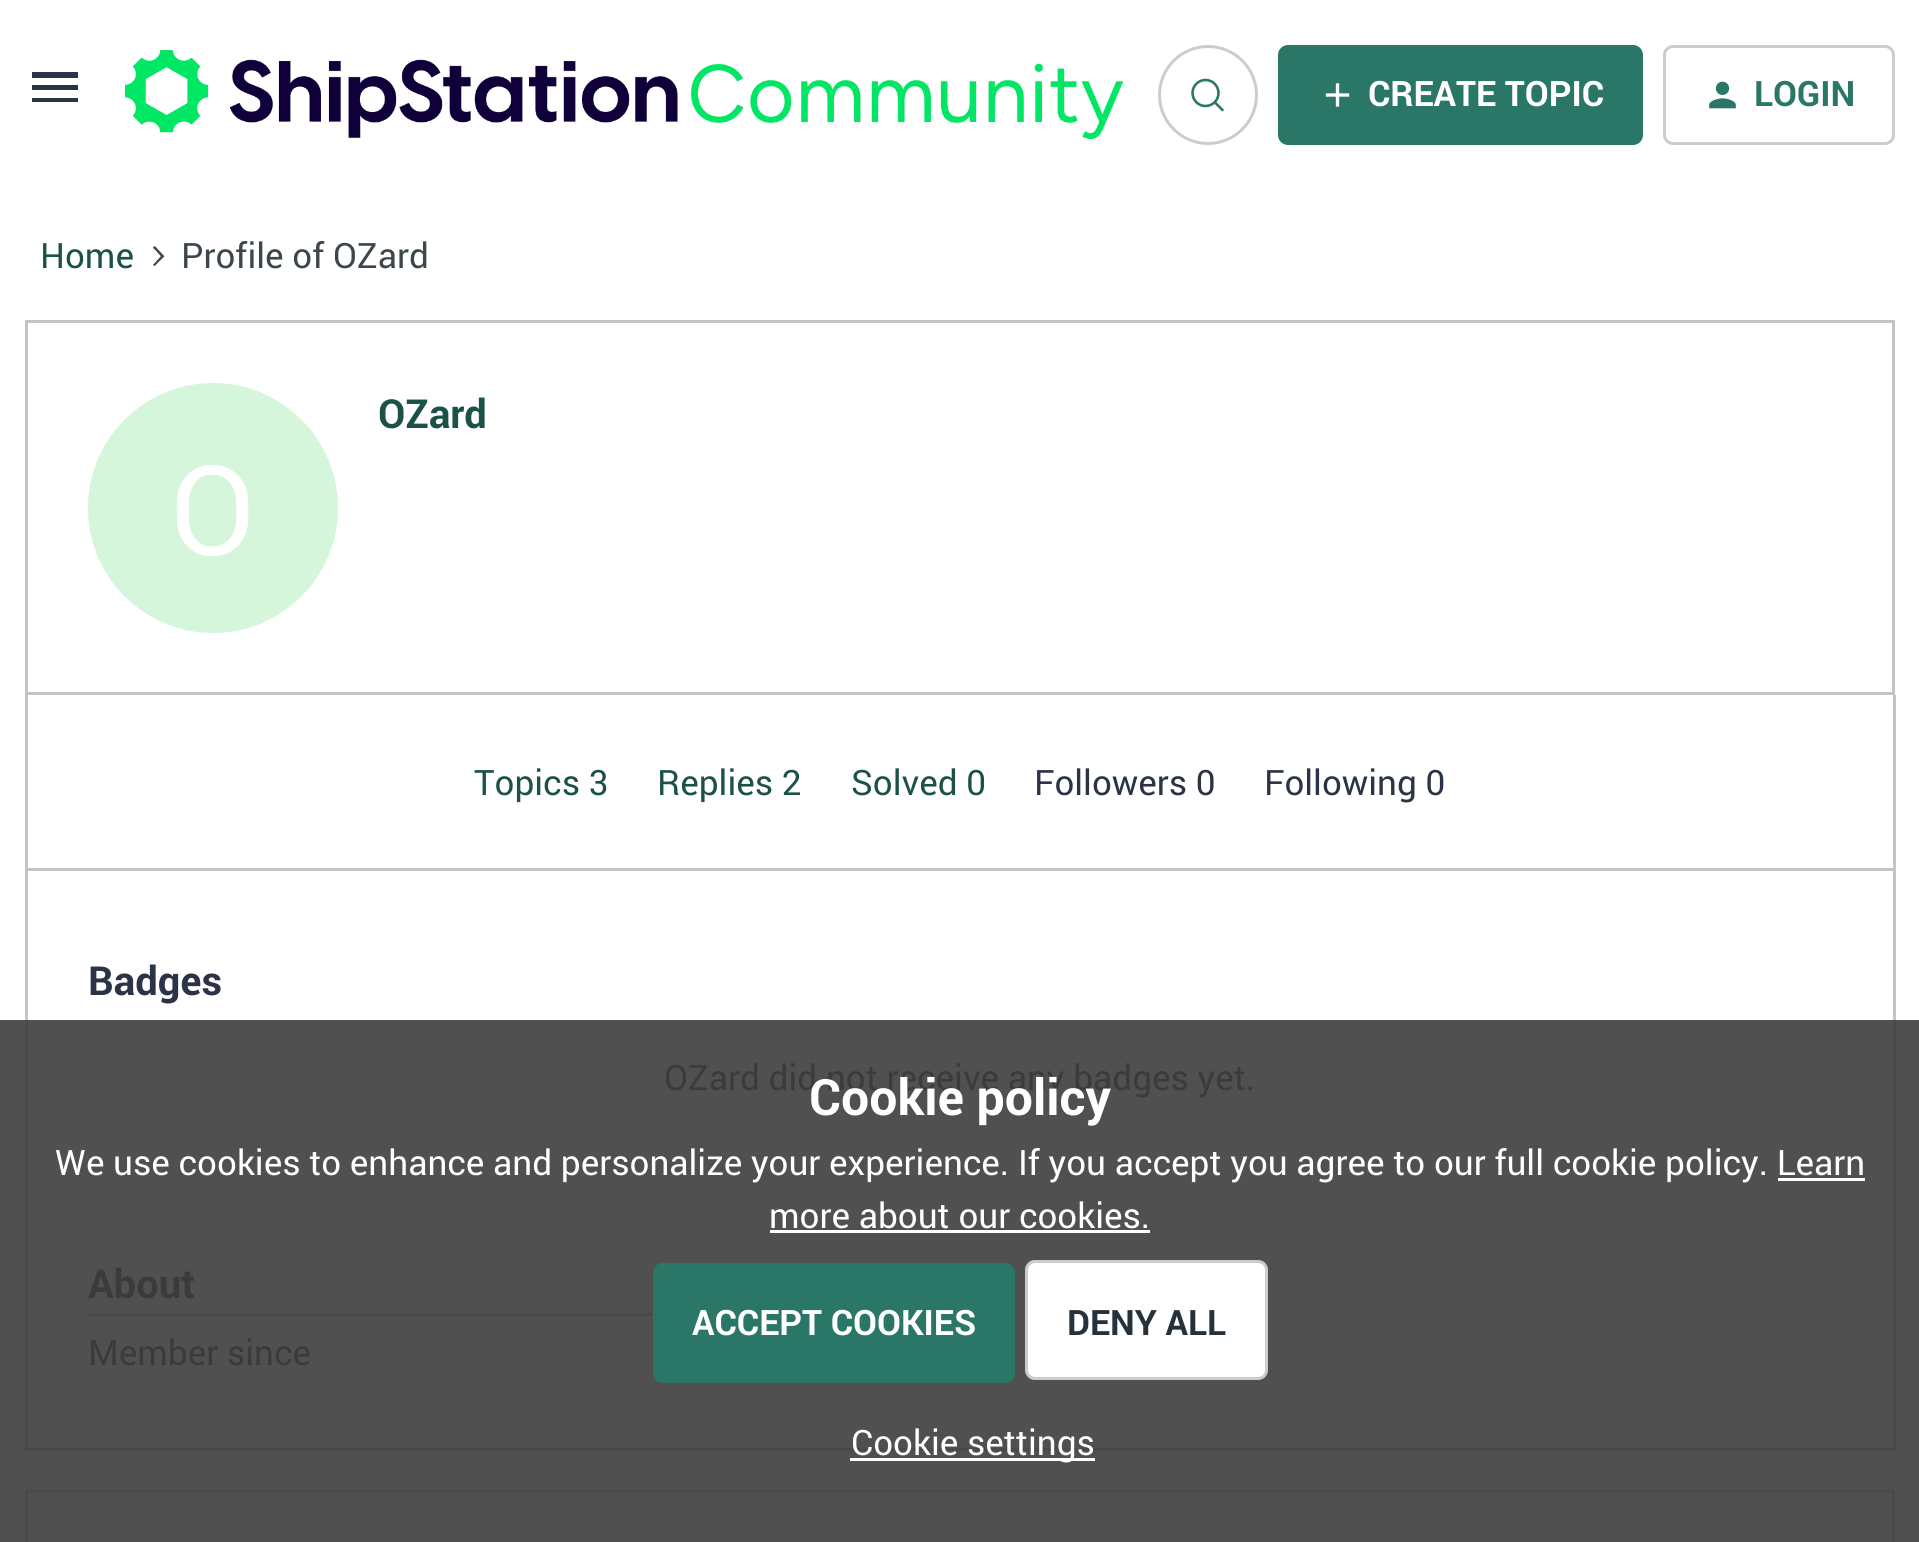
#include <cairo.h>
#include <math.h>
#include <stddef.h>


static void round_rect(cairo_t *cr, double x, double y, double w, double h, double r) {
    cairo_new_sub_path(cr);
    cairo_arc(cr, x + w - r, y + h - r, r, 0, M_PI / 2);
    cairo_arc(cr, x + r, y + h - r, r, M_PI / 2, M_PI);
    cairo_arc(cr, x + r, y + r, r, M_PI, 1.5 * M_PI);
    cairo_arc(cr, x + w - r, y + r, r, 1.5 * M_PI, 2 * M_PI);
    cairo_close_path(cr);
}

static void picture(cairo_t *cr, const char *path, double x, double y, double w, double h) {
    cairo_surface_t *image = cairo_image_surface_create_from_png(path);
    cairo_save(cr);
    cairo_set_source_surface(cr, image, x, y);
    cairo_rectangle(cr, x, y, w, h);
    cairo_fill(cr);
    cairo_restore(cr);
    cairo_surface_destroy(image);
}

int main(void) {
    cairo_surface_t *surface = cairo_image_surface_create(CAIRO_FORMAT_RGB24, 1919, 1542);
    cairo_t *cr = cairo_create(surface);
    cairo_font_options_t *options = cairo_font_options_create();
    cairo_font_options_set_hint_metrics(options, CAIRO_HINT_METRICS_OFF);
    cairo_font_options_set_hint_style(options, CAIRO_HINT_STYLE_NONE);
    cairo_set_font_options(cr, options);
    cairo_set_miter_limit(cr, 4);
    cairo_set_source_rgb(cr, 1, 1, 1);
    cairo_paint(cr);
    cairo_set_source_rgb(cr, 0.314, 0.314, 0.314);
    cairo_rectangle(cr, 0, 1020, 1919, 522);
    cairo_fill(cr);
    cairo_set_source_rgb(cr, 0.169, 0.2, 0.275);
    cairo_new_path(cr);
    cairo_move_to(cr, 32, 102);
    cairo_line_to(cr, 78, 102);
    cairo_line_to(cr, 78, 98);
    cairo_line_to(cr, 32, 98);
    cairo_close_path(cr);
    cairo_move_to(cr, 32, 90);
    cairo_line_to(cr, 78, 90);
    cairo_line_to(cr, 78, 85);
    cairo_line_to(cr, 32, 85);
    cairo_close_path(cr);
    cairo_move_to(cr, 32, 72);
    cairo_line_to(cr, 32, 78);
    cairo_line_to(cr, 78, 78);
    cairo_line_to(cr, 78, 72);
    cairo_close_path(cr);
    cairo_fill(cr);
    picture(cr, "img1.png", 125, 50, 998, 90);
    cairo_arc(cr, 1208, 95, 48.5, 0, 2 * M_PI);
    cairo_set_source_rgb(cr, 0.8, 0.8, 0.8);
    cairo_set_line_width(cr, 3);
    cairo_stroke(cr);
    cairo_arc(cr, 1205.5, 93, 13, 0, 2 * M_PI);
    cairo_set_source_rgb(cr, 0.165, 0.467, 0.408);
    cairo_set_line_width(cr, 2.6);
    cairo_stroke(cr);
    cairo_new_path(cr);
    cairo_move_to(cr, 1215, 102.5);
    cairo_line_to(cr, 1222.5, 110);
    cairo_set_line_cap(cr, CAIRO_LINE_CAP_ROUND);
    cairo_stroke(cr);
    round_rect(cr, 1279.5, 46.5, 362, 97, 8.5);
    cairo_fill_preserve(cr);
    cairo_set_line_width(cr, 3);
    cairo_set_line_cap(cr, CAIRO_LINE_CAP_BUTT);
    cairo_stroke(cr);
    picture(cr, "img2.png", 1325, 83, 25, 24);
    cairo_select_font_face(cr, "Roboto", CAIRO_FONT_SLANT_NORMAL, CAIRO_FONT_WEIGHT_BOLD);
    cairo_set_font_size(cr, 35);
    cairo_set_source_rgb(cr, 1, 1, 1);
    cairo_move_to(cr, 1368, 106);
    cairo_show_text(cr, "CREATE TOPIC");
    round_rect(cr, 1664.5, 46.5, 229, 97, 8.5);
    cairo_set_source_rgb(cr, 0.8, 0.8, 0.8);
    cairo_stroke(cr);
    picture(cr, "img3.png", 1709, 81, 27, 28);
    cairo_set_source_rgb(cr, 0.165, 0.467, 0.408);
    cairo_move_to(cr, 1754, 106);
    cairo_show_text(cr, "LOGIN");
    cairo_select_font_face(cr, "Roboto", CAIRO_FONT_SLANT_NORMAL, CAIRO_FONT_WEIGHT_NORMAL);
    cairo_set_source_rgb(cr, 0.11, 0.318, 0.278);
    cairo_move_to(cr, 40, 268);
    cairo_show_text(cr, "Home");
    picture(cr, "img4.png", 153, 246, 12, 20);
    cairo_set_source_rgb(cr, 0.235, 0.275, 0.294);
    cairo_move_to(cr, 181, 268);
    cairo_show_text(cr, "Profile of OZard");
    cairo_rectangle(cr, 26.5, 321.5, 1867, 372);
    cairo_set_source_rgb(cr, 0.769, 0.769, 0.769);
    cairo_stroke(cr);
    cairo_select_font_face(cr, "Roboto", CAIRO_FONT_SLANT_NORMAL, CAIRO_FONT_WEIGHT_BOLD);
    cairo_set_font_size(cr, 40);
    cairo_set_source_rgb(cr, 0.11, 0.318, 0.278);
    cairo_move_to(cr, 378, 428);
    cairo_show_text(cr, "OZard");
    cairo_set_source_rgb(cr, 0.835, 0.961, 0.859);
    cairo_new_path(cr);
    cairo_arc(cr, 213, 508, 125, 0, 2 * M_PI);
    cairo_fill(cr);
    cairo_select_font_face(cr, "Roboto", CAIRO_FONT_SLANT_NORMAL, CAIRO_FONT_WEIGHT_NORMAL);
    cairo_set_font_size(cr, 125);
    cairo_set_source_rgb(cr, 1, 1, 1);
    cairo_move_to(cr, 170, 555);
    cairo_show_text(cr, "O");
    cairo_set_source_rgb(cr, 0.769, 0.769, 0.769);
    cairo_rectangle(cr, 1893, 695, 3, 325);
    cairo_fill(cr);
    cairo_rectangle(cr, 25, 870, 3, 150);
    cairo_fill(cr);
    cairo_rectangle(cr, 25, 868, 1870, 3);
    cairo_fill(cr);
    cairo_rectangle(cr, 25, 695, 3, 175);
    cairo_fill(cr);
    cairo_set_font_size(cr, 35);
    cairo_set_source_rgb(cr, 0.11, 0.318, 0.278);
    cairo_move_to(cr, 474, 795);
    cairo_show_text(cr, "Topics 3");
    cairo_move_to(cr, 657, 795);
    cairo_show_text(cr, "Replies 2");
    cairo_move_to(cr, 851, 795);
    cairo_show_text(cr, "Solved 0");
    cairo_set_source_rgb(cr, 0.169, 0.2, 0.275);
    cairo_move_to(cr, 1034, 795);
    cairo_show_text(cr, "Followers 0");
    cairo_move_to(cr, 1264, 795);
    cairo_show_text(cr, "Following 0");
    cairo_set_source_rgb(cr, 0.29, 0.29, 0.29);
    cairo_rectangle(cr, 1893, 1020, 3, 430);
    cairo_fill(cr);
    cairo_rectangle(cr, 25, 1020, 3, 163);
    cairo_fill(cr);
    cairo_select_font_face(cr, "Roboto", CAIRO_FONT_SLANT_NORMAL, CAIRO_FONT_WEIGHT_BOLD);
    cairo_set_font_size(cr, 40);
    cairo_set_source_rgb(cr, 0.169, 0.2, 0.275);
    cairo_move_to(cr, 88, 995);
    cairo_show_text(cr, "Badges");
    cairo_select_font_face(cr, "Roboto", CAIRO_FONT_SLANT_NORMAL, CAIRO_FONT_WEIGHT_NORMAL);
    cairo_set_font_size(cr, 35);
    cairo_set_source_rgb(cr, 0.227, 0.231, 0.239);
    cairo_move_to(cr, 664, 1090);
    cairo_show_text(cr, "OZard did not receive any badges yet.");
    cairo_set_source_rgb(cr, 0.29, 0.29, 0.29);
    cairo_rectangle(cr, 25, 1448, 1870, 3);
    cairo_fill(cr);
    cairo_rectangle(cr, 25, 1183, 3, 267);
    cairo_fill(cr);
    cairo_rectangle(cr, 88, 1313, 565, 3);
    cairo_fill(cr);
    cairo_select_font_face(cr, "Roboto", CAIRO_FONT_SLANT_NORMAL, CAIRO_FONT_WEIGHT_BOLD);
    cairo_set_font_size(cr, 40);
    cairo_set_source_rgb(cr, 0.227, 0.231, 0.239);
    cairo_move_to(cr, 88, 1298);
    cairo_show_text(cr, "About");
    cairo_select_font_face(cr, "Roboto", CAIRO_FONT_SLANT_NORMAL, CAIRO_FONT_WEIGHT_NORMAL);
    cairo_set_font_size(cr, 35);
    cairo_move_to(cr, 88, 1365);
    cairo_show_text(cr, "Member since");
    cairo_rectangle(cr, 26.5, 1491.5, 1867, 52);
    cairo_set_source_rgb(cr, 0.29, 0.29, 0.29);
    cairo_stroke(cr);
    cairo_select_font_face(cr, "Roboto", CAIRO_FONT_SLANT_NORMAL, CAIRO_FONT_WEIGHT_BOLD);
    cairo_set_font_size(cr, 50);
    cairo_set_source_rgb(cr, 1, 1, 1);
    cairo_move_to(cr, 809, 1115);
    cairo_show_text(cr, "Cookie policy");
    cairo_select_font_face(cr, "Roboto", CAIRO_FONT_SLANT_NORMAL, CAIRO_FONT_WEIGHT_NORMAL);
    cairo_set_font_size(cr, 35);
    cairo_move_to(cr, 55, 1175);
    cairo_show_text(cr, "We use cookies to enhance and personalize your experience. If you accept you agree to our full cookie policy. Learn");
    cairo_rectangle(cr, 1778, 1178, 87, 3);
    cairo_fill(cr);
    cairo_move_to(cr, 769, 1228);
    cairo_show_text(cr, "more about our cookies.");
    cairo_rectangle(cr, 770, 1230, 380, 3);
    cairo_fill(cr);
    cairo_set_source_rgb(cr, 0.165, 0.467, 0.408);
    round_rect(cr, 654.5, 1264.5, 359, 117, 8.5);
    cairo_fill_preserve(cr);
    cairo_stroke(cr);
    cairo_select_font_face(cr, "Roboto", CAIRO_FONT_SLANT_NORMAL, CAIRO_FONT_WEIGHT_BOLD);
    cairo_set_source_rgb(cr, 1, 1, 1);
    cairo_move_to(cr, 692, 1335);
    cairo_show_text(cr, "ACCEPT COOKIES");
    round_rect(cr, 1025, 1260, 243, 120, 10);
    cairo_fill(cr);
    round_rect(cr, 1026.5, 1261.5, 240, 117, 8.5);
    cairo_set_source_rgba(cr, 0, 0, 0, 0.2);
    cairo_stroke(cr);
    cairo_set_source_rgb(cr, 0.145, 0.192, 0.231);
    cairo_move_to(cr, 1067, 1335);
    cairo_show_text(cr, "DENY ALL");
    cairo_set_source_rgb(cr, 1, 1, 1);
    cairo_rectangle(cr, 850, 1458, 245, 3);
    cairo_fill(cr);
    cairo_select_font_face(cr, "Roboto", CAIRO_FONT_SLANT_NORMAL, CAIRO_FONT_WEIGHT_NORMAL);
    cairo_move_to(cr, 851, 1455);
    cairo_show_text(cr, "Cookie settings");
    cairo_surface_write_to_png(surface, "page.png");
    cairo_font_options_destroy(options);
    cairo_destroy(cr);
    cairo_surface_destroy(surface);
    return 0;
}
